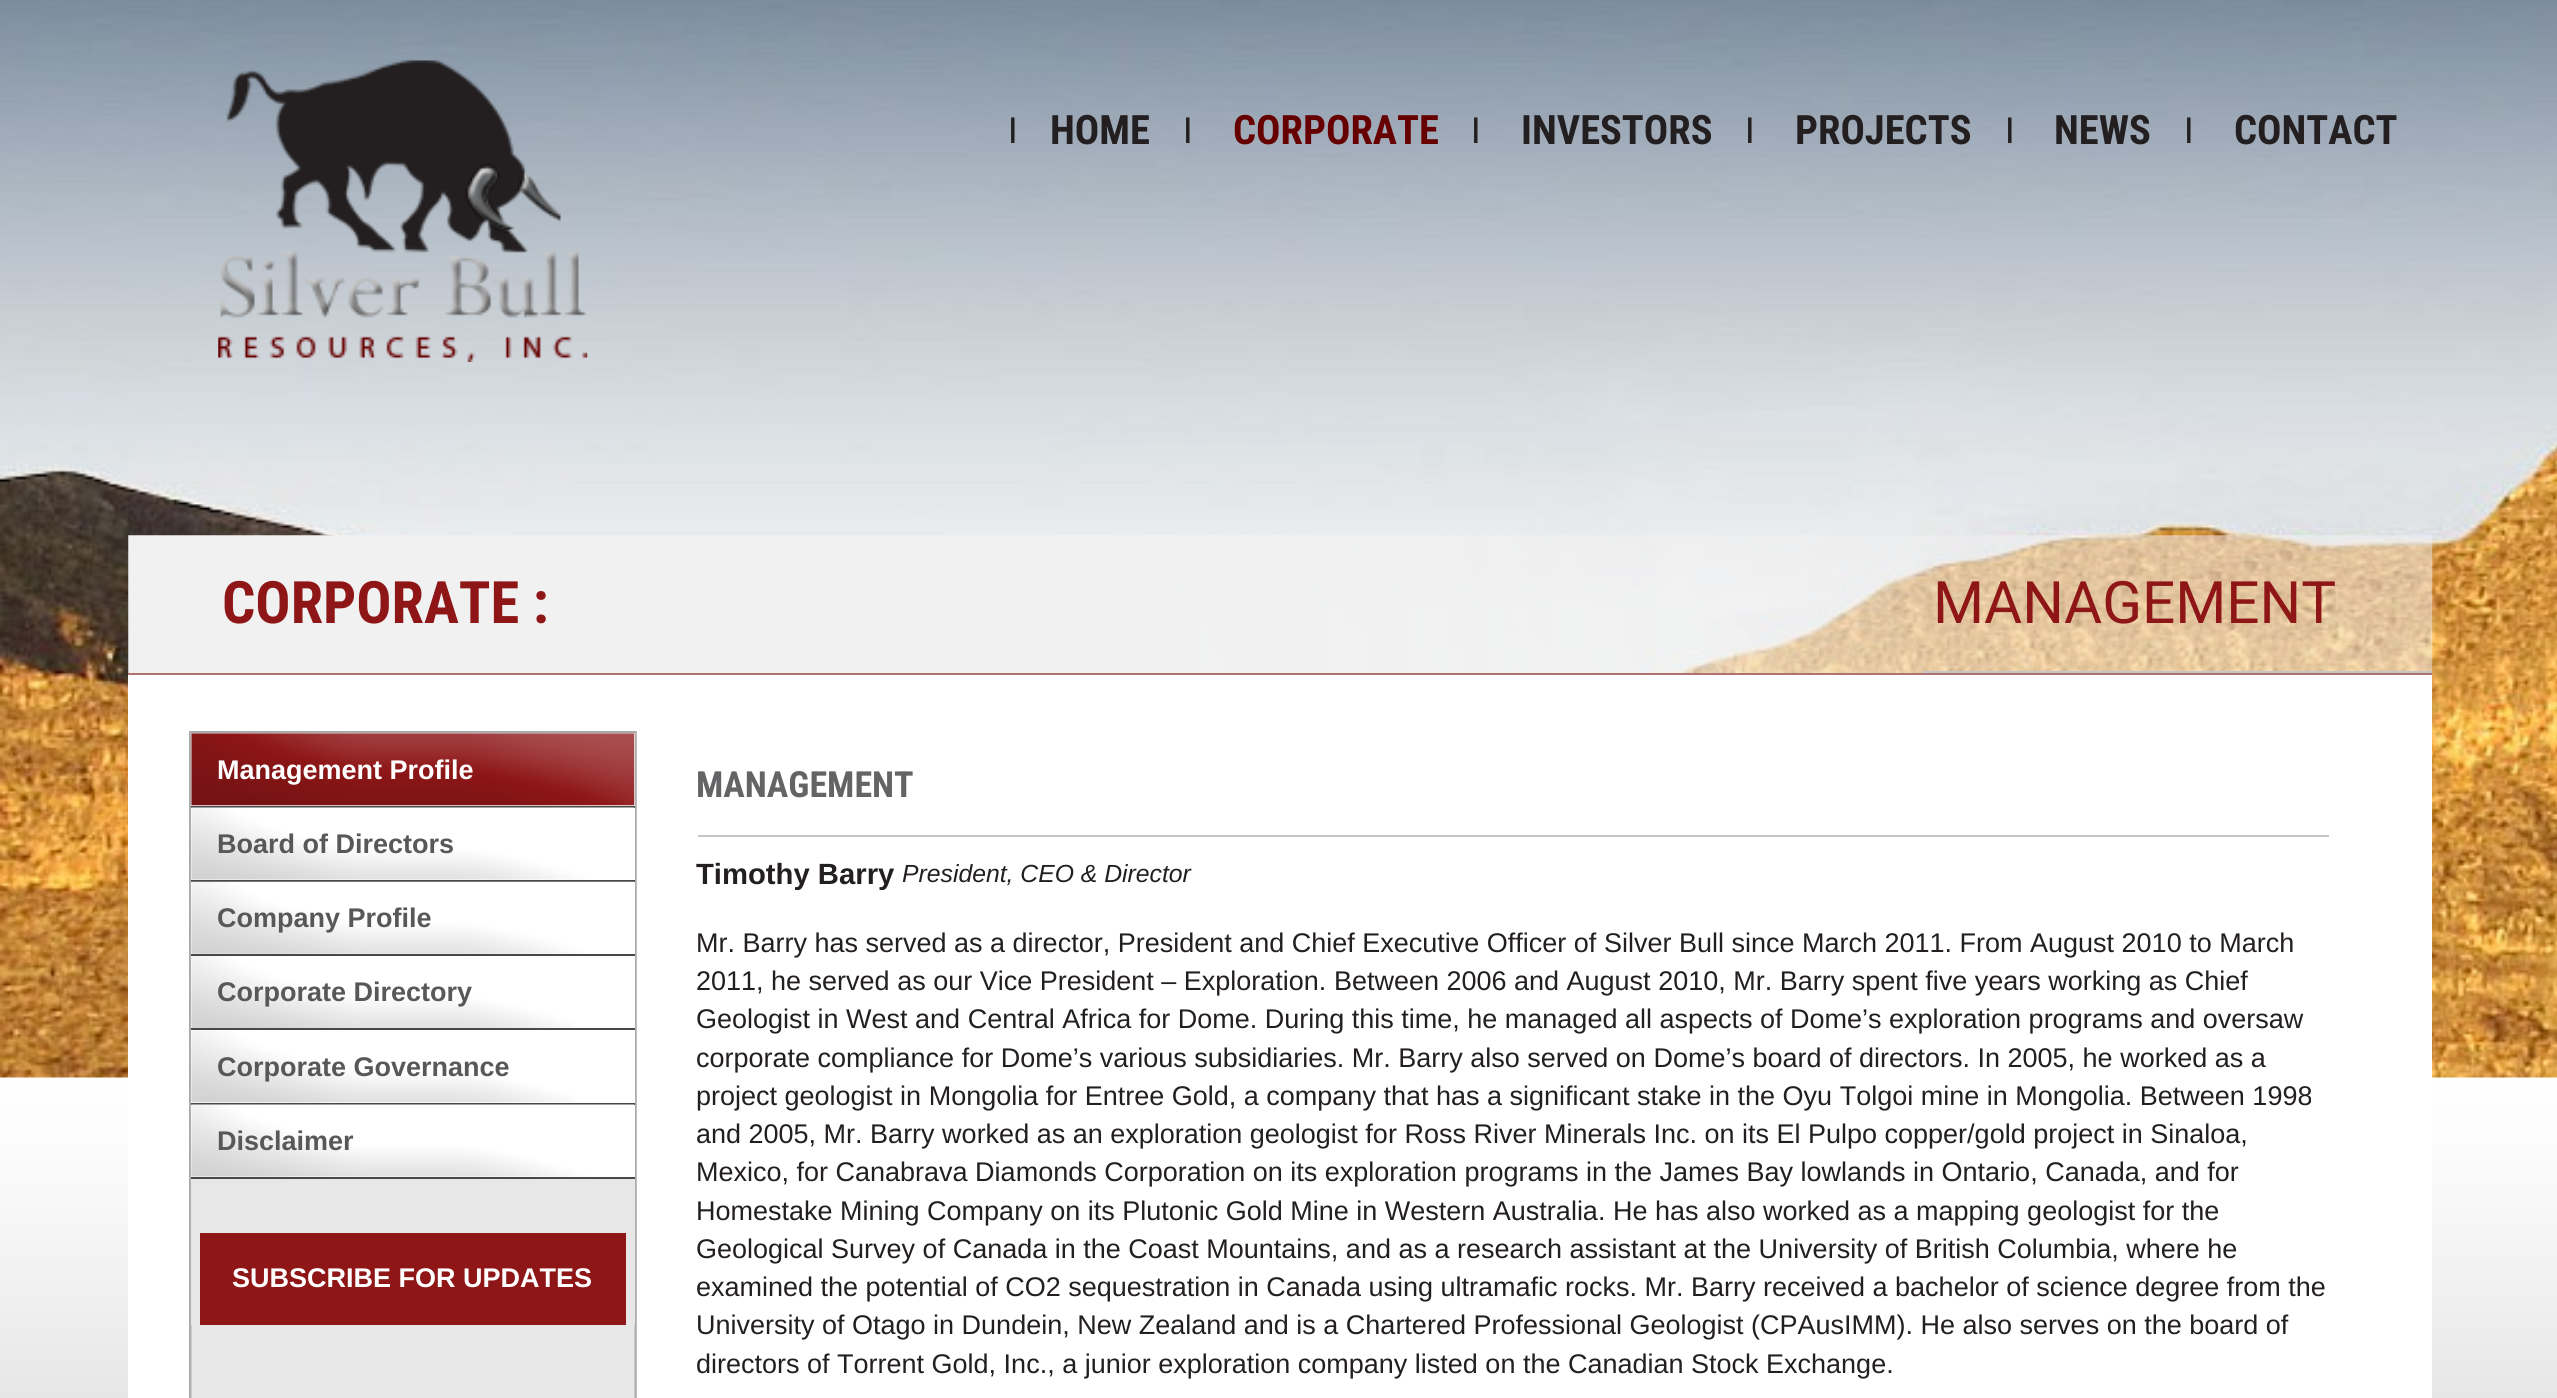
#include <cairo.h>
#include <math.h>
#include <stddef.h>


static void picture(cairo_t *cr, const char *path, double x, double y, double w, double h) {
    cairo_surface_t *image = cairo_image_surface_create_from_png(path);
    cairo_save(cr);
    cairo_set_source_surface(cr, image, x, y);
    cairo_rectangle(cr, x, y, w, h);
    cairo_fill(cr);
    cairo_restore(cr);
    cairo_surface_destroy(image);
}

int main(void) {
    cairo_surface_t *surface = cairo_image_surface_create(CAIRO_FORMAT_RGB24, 2557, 1398);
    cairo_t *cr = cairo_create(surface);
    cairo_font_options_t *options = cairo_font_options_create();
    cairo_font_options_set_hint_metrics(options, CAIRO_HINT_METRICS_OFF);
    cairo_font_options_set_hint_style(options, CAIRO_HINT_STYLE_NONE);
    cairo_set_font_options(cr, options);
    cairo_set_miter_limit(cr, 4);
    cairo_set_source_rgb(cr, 1, 1, 1);
    cairo_paint(cr);
    picture(cr, "img1.png", 0, 1077, 2557, 321);
    picture(cr, "img2.png", 0, 0, 2557, 1078);
    picture(cr, "img3.png", 218, 60, 370, 302);
    cairo_select_font_face(cr, "Liberation Sans", CAIRO_FONT_SLANT_NORMAL, CAIRO_FONT_WEIGHT_BOLD);
    cairo_set_font_size(cr, 27);
    cairo_set_source_rgb(cr, 0.137, 0.122, 0.125);
    cairo_move_to(cr, 1009, 137);
    cairo_show_text(cr, "|");
    cairo_select_font_face(cr, "Roboto Condensed", CAIRO_FONT_SLANT_NORMAL, CAIRO_FONT_WEIGHT_BOLD);
    cairo_set_font_size(cr, 40.5);
    cairo_move_to(cr, 1050, 144);
    cairo_show_text(cr, "HOME");
    cairo_select_font_face(cr, "Liberation Sans", CAIRO_FONT_SLANT_NORMAL, CAIRO_FONT_WEIGHT_BOLD);
    cairo_set_font_size(cr, 27);
    cairo_move_to(cr, 1184, 137);
    cairo_show_text(cr, "|");
    cairo_select_font_face(cr, "Roboto Condensed", CAIRO_FONT_SLANT_NORMAL, CAIRO_FONT_WEIGHT_BOLD);
    cairo_set_font_size(cr, 40.5);
    cairo_set_source_rgb(cr, 0.4, 0, 0);
    cairo_move_to(cr, 1233, 144);
    cairo_show_text(cr, "CORPORATE");
    cairo_select_font_face(cr, "Liberation Sans", CAIRO_FONT_SLANT_NORMAL, CAIRO_FONT_WEIGHT_BOLD);
    cairo_set_font_size(cr, 27);
    cairo_set_source_rgb(cr, 0.137, 0.122, 0.125);
    cairo_move_to(cr, 1472, 137);
    cairo_show_text(cr, "|");
    cairo_select_font_face(cr, "Roboto Condensed", CAIRO_FONT_SLANT_NORMAL, CAIRO_FONT_WEIGHT_BOLD);
    cairo_set_font_size(cr, 40.5);
    cairo_move_to(cr, 1521, 144);
    cairo_show_text(cr, "INVESTORS");
    cairo_select_font_face(cr, "Liberation Sans", CAIRO_FONT_SLANT_NORMAL, CAIRO_FONT_WEIGHT_BOLD);
    cairo_set_font_size(cr, 27);
    cairo_move_to(cr, 1746, 137);
    cairo_show_text(cr, "|");
    cairo_select_font_face(cr, "Roboto Condensed", CAIRO_FONT_SLANT_NORMAL, CAIRO_FONT_WEIGHT_BOLD);
    cairo_set_font_size(cr, 40.5);
    cairo_move_to(cr, 1795, 144);
    cairo_show_text(cr, "PROJECTS");
    cairo_select_font_face(cr, "Liberation Sans", CAIRO_FONT_SLANT_NORMAL, CAIRO_FONT_WEIGHT_BOLD);
    cairo_set_font_size(cr, 27);
    cairo_move_to(cr, 2006, 137);
    cairo_show_text(cr, "|");
    cairo_select_font_face(cr, "Roboto Condensed", CAIRO_FONT_SLANT_NORMAL, CAIRO_FONT_WEIGHT_BOLD);
    cairo_set_font_size(cr, 40.5);
    cairo_move_to(cr, 2054, 144);
    cairo_show_text(cr, "NEWS");
    cairo_select_font_face(cr, "Liberation Sans", CAIRO_FONT_SLANT_NORMAL, CAIRO_FONT_WEIGHT_BOLD);
    cairo_set_font_size(cr, 27);
    cairo_move_to(cr, 2185, 137);
    cairo_show_text(cr, "|");
    cairo_select_font_face(cr, "Roboto Condensed", CAIRO_FONT_SLANT_NORMAL, CAIRO_FONT_WEIGHT_BOLD);
    cairo_set_font_size(cr, 40.5);
    cairo_move_to(cr, 2234, 144);
    cairo_show_text(cr, "CONTACT");
    picture(cr, "img4.png", 128, 535, 2305, 140);
    cairo_set_source_rgb(cr, 0.694, 0.443, 0.443);
    cairo_rectangle(cr, 128, 673, 2304, 2);
    cairo_fill(cr);
    cairo_set_font_size(cr, 58.5);
    cairo_set_source_rgb(cr, 0.557, 0.086, 0.09);
    cairo_move_to(cr, 222, 623);
    cairo_show_text(cr, "CORPORATE :");
    cairo_set_source_rgb(cr, 0.776, 0.776, 0.776);
    cairo_rectangle(cr, 1922, 671, 510, 2);
    cairo_fill(cr);
    cairo_select_font_face(cr, "Roboto", CAIRO_FONT_SLANT_NORMAL, CAIRO_FONT_WEIGHT_NORMAL);
    cairo_set_source_rgb(cr, 0.557, 0.086, 0.09);
    cairo_move_to(cr, 1933, 623);
    cairo_show_text(cr, "MANAGEMENT");
    cairo_set_source_rgb(cr, 1, 1, 1);
    cairo_rectangle(cr, 128, 675, 2304, 723);
    cairo_fill(cr);
    picture(cr, "img5.png", 189, 731, 448, 667);
    cairo_set_source_rgb(cr, 0.906, 0.906, 0.906);
    cairo_rectangle(cr, 191, 733, 444, 592);
    cairo_fill(cr);
    cairo_set_source_rgb(cr, 0.663, 0.663, 0.663);
    cairo_rectangle(cr, 191, 731, 444, 2);
    cairo_fill(cr);
    cairo_set_source_rgb(cr, 1, 1, 1);
    cairo_rectangle(cr, 191, 734, 444, 443);
    cairo_fill(cr);
    cairo_set_source_rgb(cr, 0.278, 0.282, 0.282);
    cairo_rectangle(cr, 191, 806, 444, 2);
    cairo_fill(cr);
    picture(cr, "img6.png", 191, 733, 444, 73);
    cairo_select_font_face(cr, "Liberation Sans", CAIRO_FONT_SLANT_NORMAL, CAIRO_FONT_WEIGHT_BOLD);
    cairo_set_font_size(cr, 27);
    cairo_set_source_rgb(cr, 1, 1, 1);
    cairo_move_to(cr, 217, 779);
    cairo_show_text(cr, "Management Profile");
    cairo_set_source_rgb(cr, 0.278, 0.282, 0.282);
    cairo_rectangle(cr, 191, 880, 444, 2);
    cairo_fill(cr);
    picture(cr, "img7.png", 191, 807, 444, 73);
    cairo_set_source_rgb(cr, 0.345, 0.345, 0.345);
    cairo_move_to(cr, 217, 853);
    cairo_show_text(cr, "Board of Directors");
    cairo_set_source_rgb(cr, 0.278, 0.282, 0.282);
    cairo_rectangle(cr, 191, 954, 444, 2);
    cairo_fill(cr);
    picture(cr, "img8.png", 191, 881, 444, 73);
    cairo_set_source_rgb(cr, 0.345, 0.345, 0.345);
    cairo_move_to(cr, 217, 927);
    cairo_show_text(cr, "Company Profile");
    cairo_set_source_rgb(cr, 0.278, 0.282, 0.282);
    cairo_rectangle(cr, 191, 1028, 444, 2);
    cairo_fill(cr);
    picture(cr, "img9.png", 191, 956, 384, 72);
    cairo_set_source_rgb(cr, 0.345, 0.345, 0.345);
    cairo_move_to(cr, 217, 1001);
    cairo_show_text(cr, "Corporate Directory");
    cairo_set_source_rgb(cr, 0.278, 0.282, 0.282);
    cairo_rectangle(cr, 191, 1103, 444, 2);
    cairo_fill(cr);
    picture(cr, "img10.png", 191, 1030, 384, 73);
    cairo_set_source_rgb(cr, 0.345, 0.345, 0.345);
    cairo_move_to(cr, 217, 1076);
    cairo_show_text(cr, "Corporate Governance");
    cairo_set_source_rgb(cr, 0.278, 0.282, 0.282);
    cairo_rectangle(cr, 191, 1177, 444, 2);
    cairo_fill(cr);
    picture(cr, "img11.png", 191, 1104, 444, 73);
    cairo_set_source_rgb(cr, 0.345, 0.345, 0.345);
    cairo_move_to(cr, 217, 1150);
    cairo_show_text(cr, "Disclaimer");
    cairo_set_source_rgb(cr, 0.557, 0.086, 0.09);
    cairo_rectangle(cr, 200, 1233, 426, 92);
    cairo_fill(cr);
    cairo_set_source_rgb(cr, 1, 1, 1);
    cairo_move_to(cr, 232, 1287);
    cairo_show_text(cr, "SUBSCRIBE FOR UPDATES");
    cairo_set_source_rgb(cr, 0.776, 0.776, 0.776);
    cairo_rectangle(cr, 698, 835, 1631, 2);
    cairo_fill(cr);
    cairo_select_font_face(cr, "Roboto Condensed", CAIRO_FONT_SLANT_NORMAL, CAIRO_FONT_WEIGHT_BOLD);
    cairo_set_font_size(cr, 36);
    cairo_set_source_rgb(cr, 0.392, 0.392, 0.4);
    cairo_move_to(cr, 696, 797);
    cairo_show_text(cr, "MANAGEMENT");
    cairo_select_font_face(cr, "Liberation Sans", CAIRO_FONT_SLANT_NORMAL, CAIRO_FONT_WEIGHT_BOLD);
    cairo_set_font_size(cr, 29.25);
    cairo_set_source_rgb(cr, 0.137, 0.122, 0.125);
    cairo_move_to(cr, 696, 884);
    cairo_show_text(cr, "Timothy Barry");
    cairo_select_font_face(cr, "Liberation Sans", CAIRO_FONT_SLANT_ITALIC, CAIRO_FONT_WEIGHT_NORMAL);
    cairo_set_font_size(cr, 24.75);
    cairo_move_to(cr, 902, 882);
    cairo_show_text(cr, "President, CEO & Director");
    cairo_select_font_face(cr, "Liberation Sans", CAIRO_FONT_SLANT_NORMAL, CAIRO_FONT_WEIGHT_NORMAL);
    cairo_set_font_size(cr, 27);
    cairo_move_to(cr, 696, 952);
    cairo_show_text(cr, "Mr. Barry has served as a director, President and Chief Executive Officer of Silver Bull since March 2011. From August 2010 to March");
    cairo_move_to(cr, 696, 990);
    cairo_show_text(cr, "2011, he served as our Vice President – Exploration. Between 2006 and August 2010, Mr. Barry spent five years working as Chief");
    cairo_move_to(cr, 696, 1028);
    cairo_show_text(cr, "Geologist in West and Central Africa for Dome. During this time, he managed all aspects of Dome’s exploration programs and oversaw");
    cairo_move_to(cr, 696, 1067);
    cairo_show_text(cr, "corporate compliance for Dome’s various subsidiaries. Mr. Barry also served on Dome’s board of directors. In 2005, he worked as a");
    cairo_move_to(cr, 696, 1105);
    cairo_show_text(cr, "project geologist in Mongolia for Entree Gold, a company that has a significant stake in the Oyu Tolgoi mine in Mongolia. Between 1998");
    cairo_move_to(cr, 696, 1143);
    cairo_show_text(cr, "and 2005, Mr. Barry worked as an exploration geologist for Ross River Minerals Inc. on its El Pulpo copper/gold project in Sinaloa,");
    cairo_move_to(cr, 696, 1181);
    cairo_show_text(cr, "Mexico, for Canabrava Diamonds Corporation on its exploration programs in the James Bay lowlands in Ontario, Canada, and for");
    cairo_move_to(cr, 696, 1220);
    cairo_show_text(cr, "Homestake Mining Company on its Plutonic Gold Mine in Western Australia. He has also worked as a mapping geologist for the");
    cairo_move_to(cr, 696, 1258);
    cairo_show_text(cr, "Geological Survey of Canada in the Coast Mountains, and as a research assistant at the University of British Columbia, where he");
    cairo_move_to(cr, 696, 1296);
    cairo_show_text(cr, "examined the potential of CO2 sequestration in Canada using ultramafic rocks. Mr. Barry received a bachelor of science degree from the");
    cairo_move_to(cr, 696, 1334);
    cairo_show_text(cr, "University of Otago in Dundein, New Zealand and is a Chartered Professional Geologist (CPAusIMM). He also serves on the board of");
    cairo_move_to(cr, 696, 1373);
    cairo_show_text(cr, "directors of Torrent Gold, Inc., a junior exploration company listed on the Canadian Stock Exchange.");
    cairo_surface_write_to_png(surface, "page.png");
    cairo_font_options_destroy(options);
    cairo_destroy(cr);
    cairo_surface_destroy(surface);
    return 0;
}
